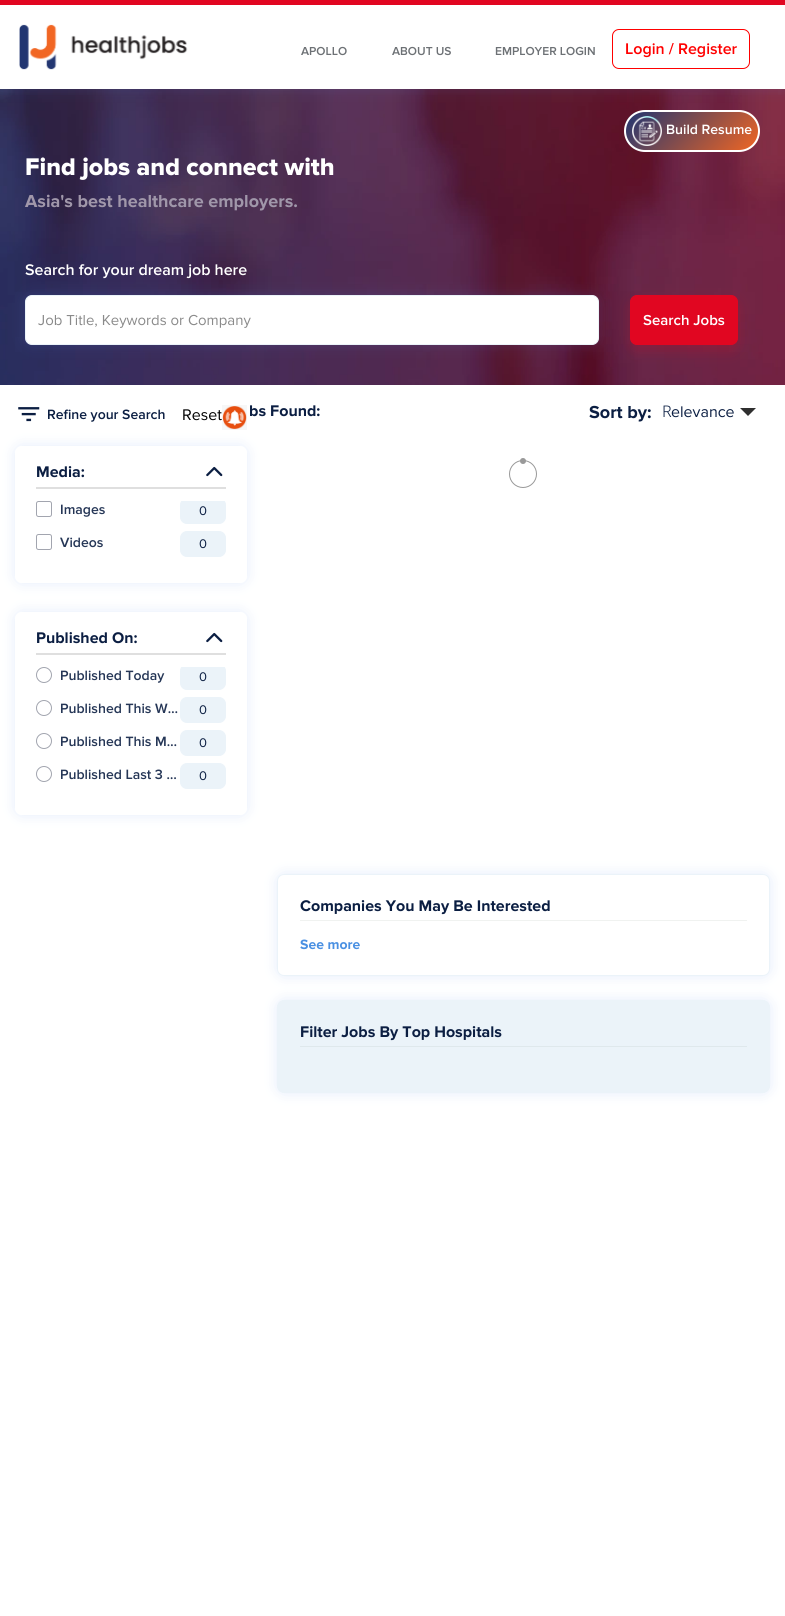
#include <cairo.h>
#include <math.h>
#include <stddef.h>


static void round_rect(cairo_t *cr, double x, double y, double w, double h, double r) {
    cairo_new_sub_path(cr);
    cairo_arc(cr, x + w - r, y + h - r, r, 0, M_PI / 2);
    cairo_arc(cr, x + r, y + h - r, r, M_PI / 2, M_PI);
    cairo_arc(cr, x + r, y + r, r, M_PI, 1.5 * M_PI);
    cairo_arc(cr, x + w - r, y + r, r, 1.5 * M_PI, 2 * M_PI);
    cairo_close_path(cr);
}

static void shadow(cairo_t *cr, double x, double y, double w, double h, double r, double blur, double alpha) {
    cairo_push_group_with_content(cr, CAIRO_CONTENT_ALPHA);
    cairo_set_operator(cr, CAIRO_OPERATOR_SOURCE);
    for (int i = 15; i >= -15 && fmin(w, h) + blur * i / 3 > 0; i -= 2) {
        double e = blur * i / 6;
        cairo_set_source_rgba(cr, 0, 0, 0, alpha * erfc((i - 1) / 8.5) / 2);
        round_rect(cr, x - e, y - e, w + 2 * e, h + 2 * e, fmax(0, fmin(r + e + blur * .6, fmin(w, h) / 2 + e)));
        cairo_fill(cr);
    }
    cairo_pattern_t *soft = cairo_pop_group(cr);
    cairo_mask(cr, soft);
    cairo_pattern_destroy(soft);
}

static void picture(cairo_t *cr, const char *path, double x, double y, double w, double h) {
    cairo_surface_t *image = cairo_image_surface_create_from_png(path);
    cairo_save(cr);
    cairo_set_source_surface(cr, image, x, y);
    cairo_rectangle(cr, x, y, w, h);
    cairo_fill(cr);
    cairo_restore(cr);
    cairo_surface_destroy(image);
}

int main(void) {
    cairo_surface_t *surface = cairo_image_surface_create(CAIRO_FORMAT_RGB24, 785, 1616);
    cairo_t *cr = cairo_create(surface);
    cairo_font_options_t *options = cairo_font_options_create();
    cairo_font_options_set_hint_metrics(options, CAIRO_HINT_METRICS_OFF);
    cairo_font_options_set_hint_style(options, CAIRO_HINT_STYLE_NONE);
    cairo_set_font_options(cr, options);
    cairo_set_miter_limit(cr, 4);
    cairo_pattern_t *gradient;
    cairo_set_source_rgb(cr, 1, 1, 1);
    cairo_paint(cr);
    picture(cr, "img2.png", 0, 89, 785, 296);
    cairo_save(cr);
    round_rect(cr, 624, 110, 136, 42, 21);
    cairo_clip(cr);
    gradient = cairo_pattern_create_linear(735, 174, 650, 89);
    cairo_pattern_add_color_stop_rgba(gradient, 0, 0.945, 0.4, 0.137, 1);
    cairo_pattern_add_color_stop_rgba(gradient, 1, 0.133, 0.212, 0.443, 1);
    cairo_set_source(cr, gradient);
    cairo_pattern_destroy(gradient);
    cairo_rectangle(cr, 626, 112, 132, 38);
    cairo_fill(cr);
    cairo_restore(cr);
    round_rect(cr, 625, 111, 134, 40, 20);
    cairo_set_source_rgb(cr, 1, 1, 1);
    cairo_stroke(cr);
    cairo_set_source_rgb(cr, 0.357, 0.561, 0.91);
    shadow(cr, 0, 0, 785, 89, 0, 7, 0.16);
    cairo_set_source_rgb(cr, 1, 1, 1);
    cairo_rectangle(cr, 0, 5, 785, 84);
    cairo_fill(cr);
    cairo_set_source_rgb(cr, 0.882, 0.024, 0.129);
    cairo_rectangle(cr, 0, 0, 785, 5);
    cairo_fill(cr);
    picture(cr, "img1.png", 19, 24, 169, 46);
    cairo_select_font_face(cr, "Proxima Nova SemiBold", CAIRO_FONT_SLANT_NORMAL, CAIRO_FONT_WEIGHT_NORMAL);
    cairo_set_font_size(cr, 12);
    cairo_set_source_rgb(cr, 0.427, 0.443, 0.459);
    cairo_move_to(cr, 301, 55);
    cairo_show_text(cr, "APOLLO");
    cairo_move_to(cr, 392, 55);
    cairo_show_text(cr, "ABOUT US");
    cairo_move_to(cr, 495, 55);
    cairo_show_text(cr, "EMPLOYER LOGIN");
    round_rect(cr, 612.5, 29.5, 137, 39, 6.5);
    cairo_set_source_rgb(cr, 1, 0, 0);
    cairo_set_line_width(cr, 1);
    cairo_stroke(cr);
    cairo_set_font_size(cr, 16);
    cairo_move_to(cr, 625, 54);
    cairo_show_text(cr, "Login / Register");
    picture(cr, "img3.png", 632, 116, 30, 30);
    cairo_set_font_size(cr, 14);
    cairo_set_source_rgb(cr, 1, 1, 1);
    cairo_move_to(cr, 666, 134);
    cairo_show_text(cr, "Build Resume");
    cairo_select_font_face(cr, "Proxima Nova ExtraBold", CAIRO_FONT_SLANT_NORMAL, CAIRO_FONT_WEIGHT_NORMAL);
    cairo_set_font_size(cr, 25);
    cairo_move_to(cr, 25, 175);
    cairo_show_text(cr, "Find jobs and connect with");
    cairo_select_font_face(cr, "Proxima Nova", CAIRO_FONT_SLANT_NORMAL, CAIRO_FONT_WEIGHT_BOLD);
    cairo_set_font_size(cr, 18);
    cairo_set_source_rgb(cr, 0.627, 0.592, 0.667);
    cairo_move_to(cr, 25, 207);
    cairo_show_text(cr, "Asia's best healthcare employers.");
    cairo_select_font_face(cr, "Proxima Nova SemiBold", CAIRO_FONT_SLANT_NORMAL, CAIRO_FONT_WEIGHT_NORMAL);
    cairo_set_font_size(cr, 16);
    cairo_set_source_rgb(cr, 1, 1, 1);
    cairo_move_to(cr, 25, 275);
    cairo_show_text(cr, "Search for your dream job here");
    cairo_set_source_rgb(cr, 0.357, 0.561, 0.91);
    shadow(cr, 25, 295, 574, 50, 7, 7, 0.16);
    cairo_set_source_rgb(cr, 1, 1, 1);
    round_rect(cr, 25.5, 295.5, 573, 49, 6.5);
    cairo_fill_preserve(cr);
    cairo_set_source_rgb(cr, 0.918, 0.953, 0.976);
    cairo_stroke(cr);
    cairo_select_font_face(cr, "Proxima Nova", CAIRO_FONT_SLANT_NORMAL, CAIRO_FONT_WEIGHT_NORMAL);
    cairo_set_font_size(cr, 15);
    cairo_set_source_rgb(cr, 0.541, 0.541, 0.541);
    cairo_move_to(cr, 38, 325);
    cairo_show_text(cr, "Job Title, Keywords or Company");
    cairo_set_source_rgb(cr, 0.886, 0.024, 0.129);
    shadow(cr, 630, 301, 108, 50, 7, 6, 0.25);
    cairo_set_source_rgb(cr, 0.882, 0.024, 0.129);
    round_rect(cr, 630.5, 295.5, 107, 49, 6.5);
    cairo_fill_preserve(cr);
    cairo_stroke(cr);
    cairo_select_font_face(cr, "Proxima Nova SemiBold", CAIRO_FONT_SLANT_NORMAL, CAIRO_FONT_WEIGHT_NORMAL);
    cairo_set_source_rgb(cr, 1, 1, 1);
    cairo_move_to(cr, 643, 325);
    cairo_show_text(cr, "Search Jobs");
    picture(cr, "img4.png", 18, 407, 22, 15);
    cairo_set_font_size(cr, 14);
    cairo_set_source_rgb(cr, 0.043, 0.118, 0.259);
    cairo_move_to(cr, 47, 419);
    cairo_show_text(cr, "Refine your Search");
    cairo_select_font_face(cr, "Proxima Nova", CAIRO_FONT_SLANT_NORMAL, CAIRO_FONT_WEIGHT_NORMAL);
    cairo_set_font_size(cr, 16);
    cairo_set_source_rgb(cr, 0, 0, 0);
    cairo_move_to(cr, 182, 420);
    cairo_show_text(cr, "Reset");
    cairo_save(cr);
    cairo_set_fill_rule(cr, CAIRO_FILL_RULE_EVEN_ODD);
    cairo_new_path(cr);
    cairo_move_to(cr, 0, 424);
    cairo_line_to(cr, 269, 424);
    cairo_line_to(cr, 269, 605);
    cairo_line_to(cr, 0, 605);
    cairo_close_path(cr);
    cairo_move_to(cr, 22, 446);
    cairo_line_to(cr, 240, 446);
    cairo_curve_to(cr, 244, 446, 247, 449, 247, 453);
    cairo_line_to(cr, 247, 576);
    cairo_curve_to(cr, 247, 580, 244, 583, 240, 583);
    cairo_line_to(cr, 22, 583);
    cairo_curve_to(cr, 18, 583, 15, 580, 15, 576);
    cairo_line_to(cr, 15, 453);
    cairo_curve_to(cr, 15, 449, 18, 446, 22, 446);
    cairo_close_path(cr);
    cairo_clip(cr);
    cairo_set_source_rgb(cr, 0.357, 0.561, 0.91);
    shadow(cr, 15, 446, 232, 137, 7, 7, 0.16);
    cairo_restore(cr);
    picture(cr, "img5.png", 222, 405, 25, 25);
    cairo_set_source_rgb(cr, 0.875, 0.875, 0.875);
    cairo_rectangle(cr, 36, 487, 190, 2);
    cairo_fill(cr);
    cairo_select_font_face(cr, "Proxima Nova", CAIRO_FONT_SLANT_NORMAL, CAIRO_FONT_WEIGHT_BOLD);
    cairo_set_source_rgb(cr, 0.043, 0.118, 0.259);
    cairo_move_to(cr, 36, 477);
    cairo_show_text(cr, "Media:");
    picture(cr, "img6.png", 206, 466, 17, 11);
    round_rect(cr, 36.5, 501.5, 15, 15, 2);
    cairo_set_source_rgb(cr, 0.635, 0.647, 0.686);
    cairo_stroke(cr);
    cairo_select_font_face(cr, "Proxima Nova SemiBold", CAIRO_FONT_SLANT_NORMAL, CAIRO_FONT_WEIGHT_NORMAL);
    cairo_set_font_size(cr, 14);
    cairo_set_source_rgb(cr, 0.145, 0.212, 0.337);
    cairo_move_to(cr, 60, 514);
    cairo_show_text(cr, "Images");
    cairo_save(cr);
    cairo_rectangle(cr, 36, 501, 190, 66);
    cairo_clip(cr);
    cairo_set_source_rgb(cr, 0.918, 0.953, 0.976);
    round_rect(cr, 180.5, 498.5, 45, 25, 6.5);
    cairo_fill_preserve(cr);
    cairo_stroke(cr);
    cairo_restore(cr);
    cairo_select_font_face(cr, "Proxima Nova", CAIRO_FONT_SLANT_NORMAL, CAIRO_FONT_WEIGHT_NORMAL);
    cairo_set_font_size(cr, 13);
    cairo_set_source_rgb(cr, 0.043, 0.118, 0.259);
    cairo_move_to(cr, 199, 515);
    cairo_show_text(cr, "0");
    round_rect(cr, 36.5, 534.5, 15, 15, 2);
    cairo_set_source_rgb(cr, 0.635, 0.647, 0.686);
    cairo_stroke(cr);
    cairo_select_font_face(cr, "Proxima Nova SemiBold", CAIRO_FONT_SLANT_NORMAL, CAIRO_FONT_WEIGHT_NORMAL);
    cairo_set_font_size(cr, 14);
    cairo_set_source_rgb(cr, 0.145, 0.212, 0.337);
    cairo_move_to(cr, 60, 547);
    cairo_show_text(cr, "Videos");
    cairo_set_source_rgb(cr, 0.918, 0.953, 0.976);
    round_rect(cr, 180.5, 531.5, 45, 25, 6.5);
    cairo_fill_preserve(cr);
    cairo_stroke(cr);
    cairo_select_font_face(cr, "Proxima Nova", CAIRO_FONT_SLANT_NORMAL, CAIRO_FONT_WEIGHT_NORMAL);
    cairo_set_font_size(cr, 13);
    cairo_set_source_rgb(cr, 0.043, 0.118, 0.259);
    cairo_move_to(cr, 199, 548);
    cairo_show_text(cr, "0");
    cairo_save(cr);
    cairo_set_fill_rule(cr, CAIRO_FILL_RULE_EVEN_ODD);
    cairo_new_path(cr);
    cairo_move_to(cr, 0, 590);
    cairo_line_to(cr, 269, 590);
    cairo_line_to(cr, 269, 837);
    cairo_line_to(cr, 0, 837);
    cairo_close_path(cr);
    cairo_move_to(cr, 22, 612);
    cairo_line_to(cr, 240, 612);
    cairo_curve_to(cr, 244, 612, 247, 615, 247, 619);
    cairo_line_to(cr, 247, 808);
    cairo_curve_to(cr, 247, 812, 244, 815, 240, 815);
    cairo_line_to(cr, 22, 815);
    cairo_curve_to(cr, 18, 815, 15, 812, 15, 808);
    cairo_line_to(cr, 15, 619);
    cairo_curve_to(cr, 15, 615, 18, 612, 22, 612);
    cairo_close_path(cr);
    cairo_clip(cr);
    cairo_set_source_rgb(cr, 0.357, 0.561, 0.91);
    shadow(cr, 15, 612, 232, 203, 7, 7, 0.16);
    cairo_restore(cr);
    cairo_set_source_rgb(cr, 0.875, 0.875, 0.875);
    cairo_rectangle(cr, 36, 653, 190, 2);
    cairo_fill(cr);
    cairo_select_font_face(cr, "Proxima Nova", CAIRO_FONT_SLANT_NORMAL, CAIRO_FONT_WEIGHT_BOLD);
    cairo_set_font_size(cr, 16);
    cairo_set_source_rgb(cr, 0.043, 0.118, 0.259);
    cairo_move_to(cr, 36, 643);
    cairo_show_text(cr, "Published On:");
    picture(cr, "img6.png", 206, 632, 17, 11);
    cairo_arc(cr, 44, 675, 7.5, 0, 2 * M_PI);
    cairo_set_source_rgb(cr, 0.635, 0.647, 0.686);
    cairo_stroke(cr);
    cairo_select_font_face(cr, "Proxima Nova SemiBold", CAIRO_FONT_SLANT_NORMAL, CAIRO_FONT_WEIGHT_NORMAL);
    cairo_set_font_size(cr, 14);
    cairo_set_source_rgb(cr, 0.145, 0.212, 0.337);
    cairo_move_to(cr, 60, 680);
    cairo_show_text(cr, "Published Today");
    cairo_save(cr);
    cairo_rectangle(cr, 36, 667, 190, 132);
    cairo_clip(cr);
    cairo_set_source_rgb(cr, 0.918, 0.953, 0.976);
    round_rect(cr, 180.5, 664.5, 45, 25, 6.5);
    cairo_fill_preserve(cr);
    cairo_stroke(cr);
    cairo_restore(cr);
    cairo_select_font_face(cr, "Proxima Nova", CAIRO_FONT_SLANT_NORMAL, CAIRO_FONT_WEIGHT_NORMAL);
    cairo_set_font_size(cr, 13);
    cairo_set_source_rgb(cr, 0.043, 0.118, 0.259);
    cairo_move_to(cr, 199, 681);
    cairo_show_text(cr, "0");
    cairo_new_path(cr);
    cairo_arc(cr, 44, 708, 7.5, 0, 2 * M_PI);
    cairo_set_source_rgb(cr, 0.635, 0.647, 0.686);
    cairo_stroke(cr);
    cairo_select_font_face(cr, "Proxima Nova SemiBold", CAIRO_FONT_SLANT_NORMAL, CAIRO_FONT_WEIGHT_NORMAL);
    cairo_set_font_size(cr, 14);
    cairo_set_source_rgb(cr, 0.145, 0.212, 0.337);
    cairo_move_to(cr, 60, 713);
    cairo_show_text(cr, "Published This W…");
    cairo_set_source_rgb(cr, 0.918, 0.953, 0.976);
    round_rect(cr, 180.5, 697.5, 45, 25, 6.5);
    cairo_fill_preserve(cr);
    cairo_stroke(cr);
    cairo_select_font_face(cr, "Proxima Nova", CAIRO_FONT_SLANT_NORMAL, CAIRO_FONT_WEIGHT_NORMAL);
    cairo_set_font_size(cr, 13);
    cairo_set_source_rgb(cr, 0.043, 0.118, 0.259);
    cairo_move_to(cr, 199, 714);
    cairo_show_text(cr, "0");
    cairo_new_path(cr);
    cairo_arc(cr, 44, 741, 7.5, 0, 2 * M_PI);
    cairo_set_source_rgb(cr, 0.635, 0.647, 0.686);
    cairo_stroke(cr);
    cairo_select_font_face(cr, "Proxima Nova SemiBold", CAIRO_FONT_SLANT_NORMAL, CAIRO_FONT_WEIGHT_NORMAL);
    cairo_set_font_size(cr, 14);
    cairo_set_source_rgb(cr, 0.145, 0.212, 0.337);
    cairo_move_to(cr, 60, 746);
    cairo_show_text(cr, "Published This M…");
    cairo_set_source_rgb(cr, 0.918, 0.953, 0.976);
    round_rect(cr, 180.5, 730.5, 45, 25, 6.5);
    cairo_fill_preserve(cr);
    cairo_stroke(cr);
    cairo_select_font_face(cr, "Proxima Nova", CAIRO_FONT_SLANT_NORMAL, CAIRO_FONT_WEIGHT_NORMAL);
    cairo_set_font_size(cr, 13);
    cairo_set_source_rgb(cr, 0.043, 0.118, 0.259);
    cairo_move_to(cr, 199, 747);
    cairo_show_text(cr, "0");
    cairo_new_path(cr);
    cairo_arc(cr, 44, 774, 7.5, 0, 2 * M_PI);
    cairo_set_source_rgb(cr, 0.635, 0.647, 0.686);
    cairo_stroke(cr);
    cairo_select_font_face(cr, "Proxima Nova SemiBold", CAIRO_FONT_SLANT_NORMAL, CAIRO_FONT_WEIGHT_NORMAL);
    cairo_set_font_size(cr, 14);
    cairo_set_source_rgb(cr, 0.145, 0.212, 0.337);
    cairo_move_to(cr, 60, 779);
    cairo_show_text(cr, "Published Last 3 …");
    cairo_set_source_rgb(cr, 0.918, 0.953, 0.976);
    round_rect(cr, 180.5, 763.5, 45, 25, 6.5);
    cairo_fill_preserve(cr);
    cairo_stroke(cr);
    cairo_select_font_face(cr, "Proxima Nova", CAIRO_FONT_SLANT_NORMAL, CAIRO_FONT_WEIGHT_NORMAL);
    cairo_set_font_size(cr, 13);
    cairo_set_source_rgb(cr, 0.043, 0.118, 0.259);
    cairo_move_to(cr, 199, 780);
    cairo_show_text(cr, "0");
    cairo_select_font_face(cr, "Proxima Nova", CAIRO_FONT_SLANT_NORMAL, CAIRO_FONT_WEIGHT_BOLD);
    cairo_set_font_size(cr, 16);
    cairo_move_to(cr, 249, 416);
    cairo_show_text(cr, "bs Found:");
    cairo_new_path(cr);
    cairo_arc(cr, 523, 474, 13.5, 0, 2 * M_PI);
    cairo_set_source_rgb(cr, 0.6, 0.6, 0.6);
    cairo_stroke(cr);
    cairo_arc(cr, 523, 461, 3, 0, 2 * M_PI);
    cairo_fill(cr);
    cairo_set_font_size(cr, 18);
    cairo_set_source_rgb(cr, 0.043, 0.118, 0.259);
    cairo_move_to(cr, 589, 418);
    cairo_show_text(cr, "Sort by:");
    cairo_select_font_face(cr, "Noto Sans Light", CAIRO_FONT_SLANT_NORMAL, CAIRO_FONT_WEIGHT_NORMAL);
    cairo_set_font_size(cr, 16);
    cairo_move_to(cr, 662, 417);
    cairo_show_text(cr, "R");
    cairo_select_font_face(cr, "Proxima Nova", CAIRO_FONT_SLANT_NORMAL, CAIRO_FONT_WEIGHT_NORMAL);
    cairo_move_to(cr, 671, 417);
    cairo_show_text(cr, "elevance");
    cairo_set_source_rgb(cr, 0.184, 0.184, 0.184);
    cairo_new_path(cr);
    cairo_move_to(cr, 740, 408);
    cairo_line_to(cr, 756, 408);
    cairo_line_to(cr, 748, 416);
    cairo_close_path(cr);
    cairo_fill(cr);
    cairo_set_source_rgb(cr, 0.357, 0.561, 0.91);
    shadow(cr, 277, 874, 493, 102, 7, 7, 0.16);
    cairo_set_source_rgb(cr, 1, 1, 1);
    round_rect(cr, 277.5, 874.5, 492, 101, 6.5);
    cairo_fill_preserve(cr);
    cairo_set_source_rgb(cr, 0.918, 0.953, 0.976);
    cairo_stroke(cr);
    cairo_set_source_rgb(cr, 0.941, 0.949, 0.941);
    cairo_rectangle(cr, 300, 920, 447, 1);
    cairo_fill(cr);
    cairo_select_font_face(cr, "Proxima Nova", CAIRO_FONT_SLANT_NORMAL, CAIRO_FONT_WEIGHT_BOLD);
    cairo_set_source_rgb(cr, 0.043, 0.118, 0.259);
    cairo_move_to(cr, 300, 911);
    cairo_show_text(cr, "Companies You May Be Interested");
    cairo_set_font_size(cr, 14);
    cairo_set_source_rgb(cr, 0.29, 0.565, 0.886);
    cairo_move_to(cr, 300, 949);
    cairo_show_text(cr, "See more");
    cairo_set_source_rgb(cr, 0.357, 0.561, 0.91);
    shadow(cr, 277, 1000, 493, 93, 7, 7, 0.16);
    cairo_set_source_rgb(cr, 0.918, 0.953, 0.976);
    round_rect(cr, 277.5, 1000.5, 492, 92, 6.5);
    cairo_fill_preserve(cr);
    cairo_stroke(cr);
    cairo_set_source_rgb(cr, 0.875, 0.91, 0.922);
    cairo_rectangle(cr, 300, 1046, 447, 1);
    cairo_fill(cr);
    cairo_set_font_size(cr, 16);
    cairo_set_source_rgb(cr, 0.043, 0.118, 0.259);
    cairo_move_to(cr, 300, 1037);
    cairo_show_text(cr, "Filter Jobs By Top Hospitals");
    cairo_surface_write_to_png(surface, "page.png");
    cairo_font_options_destroy(options);
    cairo_destroy(cr);
    cairo_surface_destroy(surface);
    return 0;
}
